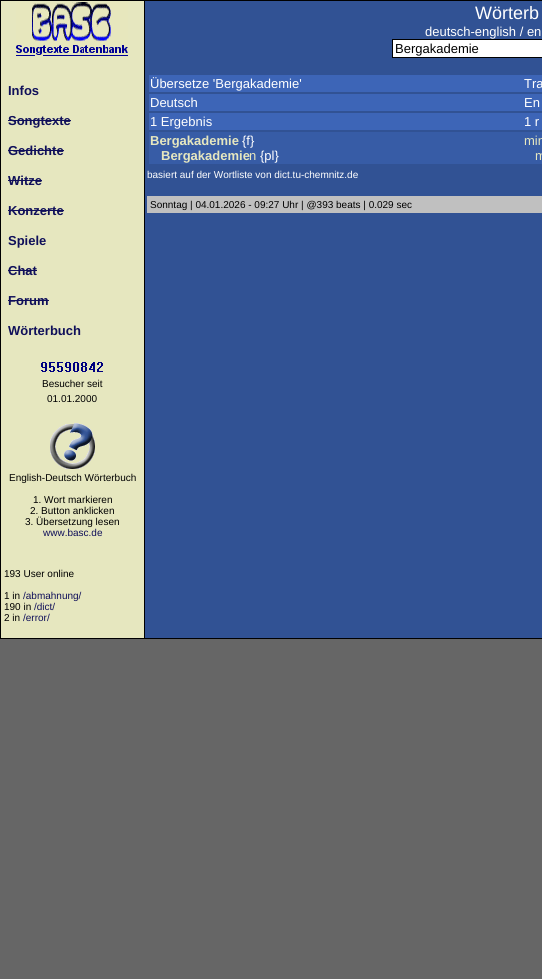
#include <cairo.h>
#include <math.h>
#include <stddef.h>


static void picture(cairo_t *cr, const char *path, double x, double y, double w, double h) {
    cairo_surface_t *image = cairo_image_surface_create_from_png(path);
    cairo_save(cr);
    cairo_set_source_surface(cr, image, x, y);
    cairo_rectangle(cr, x, y, w, h);
    cairo_fill(cr);
    cairo_restore(cr);
    cairo_surface_destroy(image);
}

int main(void) {
    cairo_surface_t *surface = cairo_image_surface_create(CAIRO_FORMAT_RGB24, 542, 979);
    cairo_t *cr = cairo_create(surface);
    cairo_font_options_t *options = cairo_font_options_create();
    cairo_font_options_set_hint_metrics(options, CAIRO_HINT_METRICS_OFF);
    cairo_font_options_set_hint_style(options, CAIRO_HINT_STYLE_NONE);
    cairo_set_font_options(cr, options);
    cairo_set_miter_limit(cr, 4);
    cairo_set_source_rgb(cr, 0.4, 0.4, 0.4);
    cairo_paint(cr);
    cairo_set_source_rgb(cr, 0, 0, 0);
    cairo_rectangle(cr, 0, 0, 542, 639);
    cairo_fill(cr);
    cairo_set_source_rgb(cr, 0.902, 0.906, 0.749);
    cairo_rectangle(cr, 1, 1, 143, 637);
    cairo_fill(cr);
    picture(cr, "img1.png", 16, 2, 112, 54);
    cairo_select_font_face(cr, "Liberation Sans", CAIRO_FONT_SLANT_NORMAL, CAIRO_FONT_WEIGHT_BOLD);
    cairo_set_font_size(cr, 13);
    cairo_set_source_rgb(cr, 0.063, 0.063, 0.353);
    cairo_move_to(cr, 8, 95);
    cairo_show_text(cr, "Infos");
    cairo_move_to(cr, 8, 125);
    cairo_show_text(cr, "Songtexte");
    cairo_rectangle(cr, 8, 120, 63, 1);
    cairo_fill(cr);
    cairo_move_to(cr, 8, 155);
    cairo_show_text(cr, "Gedichte");
    cairo_rectangle(cr, 8, 150, 56, 1);
    cairo_fill(cr);
    cairo_move_to(cr, 8, 185);
    cairo_show_text(cr, "Witze");
    cairo_rectangle(cr, 8, 180, 34, 1);
    cairo_fill(cr);
    cairo_move_to(cr, 8, 215);
    cairo_show_text(cr, "Konzerte");
    cairo_rectangle(cr, 8, 210, 56, 1);
    cairo_fill(cr);
    cairo_move_to(cr, 8, 245);
    cairo_show_text(cr, "Spiele");
    cairo_move_to(cr, 8, 275);
    cairo_show_text(cr, "Chat");
    cairo_rectangle(cr, 8, 270, 29, 1);
    cairo_fill(cr);
    cairo_move_to(cr, 8, 305);
    cairo_show_text(cr, "Forum");
    cairo_rectangle(cr, 8, 300, 41, 1);
    cairo_fill(cr);
    cairo_move_to(cr, 8, 335);
    cairo_show_text(cr, "Wörterbuch");
    picture(cr, "img2.png", 41, 362, 62, 10);
    cairo_select_font_face(cr, "Liberation Sans", CAIRO_FONT_SLANT_NORMAL, CAIRO_FONT_WEIGHT_NORMAL);
    cairo_set_font_size(cr, 10);
    cairo_set_source_rgb(cr, 0, 0, 0);
    cairo_move_to(cr, 42, 387);
    cairo_show_text(cr, "Besucher seit");
    cairo_move_to(cr, 47, 402);
    cairo_show_text(cr, "01.01.2000");
    picture(cr, "img3.png", 50, 423, 45, 46);
    cairo_move_to(cr, 9, 481);
    cairo_show_text(cr, "English-Deutsch Wörterbuch");
    cairo_move_to(cr, 33, 503);
    cairo_show_text(cr, "1. Wort markieren");
    cairo_move_to(cr, 30, 514);
    cairo_show_text(cr, "2. Button anklicken");
    cairo_move_to(cr, 25, 525);
    cairo_show_text(cr, "3. Übersetzung lesen");
    cairo_set_source_rgb(cr, 0.063, 0.063, 0.353);
    cairo_move_to(cr, 43, 536);
    cairo_show_text(cr, "www.basc.de");
    cairo_set_source_rgb(cr, 0, 0, 0);
    cairo_move_to(cr, 4, 577);
    cairo_show_text(cr, "193 User online");
    cairo_move_to(cr, 4, 599);
    cairo_show_text(cr, "1 in");
    cairo_set_source_rgb(cr, 0.063, 0.063, 0.353);
    cairo_move_to(cr, 23, 599);
    cairo_show_text(cr, "/abmahnung/");
    cairo_set_source_rgb(cr, 0, 0, 0);
    cairo_move_to(cr, 4, 610);
    cairo_show_text(cr, "190 in");
    cairo_set_source_rgb(cr, 0.063, 0.063, 0.353);
    cairo_move_to(cr, 34, 610);
    cairo_show_text(cr, "/dict/");
    cairo_set_source_rgb(cr, 0, 0, 0);
    cairo_move_to(cr, 4, 621);
    cairo_show_text(cr, "2 in");
    cairo_set_source_rgb(cr, 0.063, 0.063, 0.353);
    cairo_move_to(cr, 23, 621);
    cairo_show_text(cr, "/error/");
    cairo_set_source_rgb(cr, 0.192, 0.322, 0.58);
    cairo_rectangle(cr, 145, 1, 397, 637);
    cairo_fill(cr);
    cairo_set_font_size(cr, 18);
    cairo_set_source_rgb(cr, 1, 1, 1);
    cairo_move_to(cr, 475, 19);
    cairo_show_text(cr, "Wörterb");
    cairo_set_font_size(cr, 13);
    cairo_move_to(cr, 425, 36);
    cairo_show_text(cr, "deutsch-english / en");
    cairo_rectangle(cr, 392.5, 39.5, 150, 18);
    cairo_fill_preserve(cr);
    cairo_set_source_rgb(cr, 0, 0, 0);
    cairo_set_line_width(cr, 1);
    cairo_stroke(cr);
    cairo_move_to(cr, 395, 53);
    cairo_show_text(cr, "Bergakademie");
    cairo_set_source_rgb(cr, 0.239, 0.396, 0.718);
    cairo_rectangle(cr, 149, 75, 393, 17);
    cairo_fill(cr);
    cairo_set_source_rgb(cr, 1, 1, 1);
    cairo_move_to(cr, 150, 88);
    cairo_show_text(cr, "Übersetze 'Bergakademie'");
    cairo_move_to(cr, 524, 88);
    cairo_show_text(cr, "Tra");
    cairo_set_source_rgb(cr, 0.239, 0.396, 0.718);
    cairo_rectangle(cr, 149, 94, 393, 17);
    cairo_fill(cr);
    cairo_set_source_rgb(cr, 1, 1, 1);
    cairo_move_to(cr, 150, 107);
    cairo_show_text(cr, "Deutsch");
    cairo_move_to(cr, 524, 107);
    cairo_show_text(cr, "En");
    cairo_set_source_rgb(cr, 0.239, 0.396, 0.718);
    cairo_rectangle(cr, 149, 113, 393, 17);
    cairo_fill(cr);
    cairo_set_source_rgb(cr, 1, 1, 1);
    cairo_move_to(cr, 150, 126);
    cairo_show_text(cr, "1 Ergebnis");
    cairo_move_to(cr, 524, 126);
    cairo_show_text(cr, "1 r");
    cairo_set_source_rgb(cr, 0.216, 0.361, 0.651);
    cairo_rectangle(cr, 149, 132, 393, 32);
    cairo_fill(cr);
    cairo_select_font_face(cr, "Liberation Sans", CAIRO_FONT_SLANT_NORMAL, CAIRO_FONT_WEIGHT_BOLD);
    cairo_set_source_rgb(cr, 0.902, 0.906, 0.749);
    cairo_move_to(cr, 150, 145);
    cairo_show_text(cr, "Bergakademie");
    cairo_select_font_face(cr, "Liberation Sans", CAIRO_FONT_SLANT_NORMAL, CAIRO_FONT_WEIGHT_NORMAL);
    cairo_set_source_rgb(cr, 1, 1, 1);
    cairo_move_to(cr, 242, 145);
    cairo_show_text(cr, "{f}");
    cairo_select_font_face(cr, "Liberation Sans", CAIRO_FONT_SLANT_NORMAL, CAIRO_FONT_WEIGHT_BOLD);
    cairo_set_source_rgb(cr, 0.902, 0.906, 0.749);
    cairo_move_to(cr, 161, 160);
    cairo_show_text(cr, "Bergakademie");
    cairo_select_font_face(cr, "Liberation Sans", CAIRO_FONT_SLANT_NORMAL, CAIRO_FONT_WEIGHT_NORMAL);
    cairo_move_to(cr, 249, 160);
    cairo_show_text(cr, "n");
    cairo_set_source_rgb(cr, 1, 1, 1);
    cairo_move_to(cr, 260, 160);
    cairo_show_text(cr, "{pl}");
    cairo_set_source_rgb(cr, 0.902, 0.906, 0.749);
    cairo_move_to(cr, 524, 145);
    cairo_show_text(cr, "min");
    cairo_move_to(cr, 535, 160);
    cairo_show_text(cr, "m");
    cairo_set_font_size(cr, 10);
    cairo_set_source_rgb(cr, 1, 1, 1);
    cairo_move_to(cr, 147, 178);
    cairo_show_text(cr, "basiert auf der Wortliste von dict.tu-chemnitz.de");
    cairo_set_source_rgb(cr, 0.753, 0.753, 0.753);
    cairo_rectangle(cr, 147, 196, 395, 17);
    cairo_fill(cr);
    cairo_set_source_rgb(cr, 0, 0, 0);
    cairo_move_to(cr, 150, 208);
    cairo_show_text(cr, "Sonntag | 04.01.2026 - 09:27 Uhr | @393 beats | 0.029 sec");
    cairo_surface_write_to_png(surface, "page.png");
    cairo_font_options_destroy(options);
    cairo_destroy(cr);
    cairo_surface_destroy(surface);
    return 0;
}
